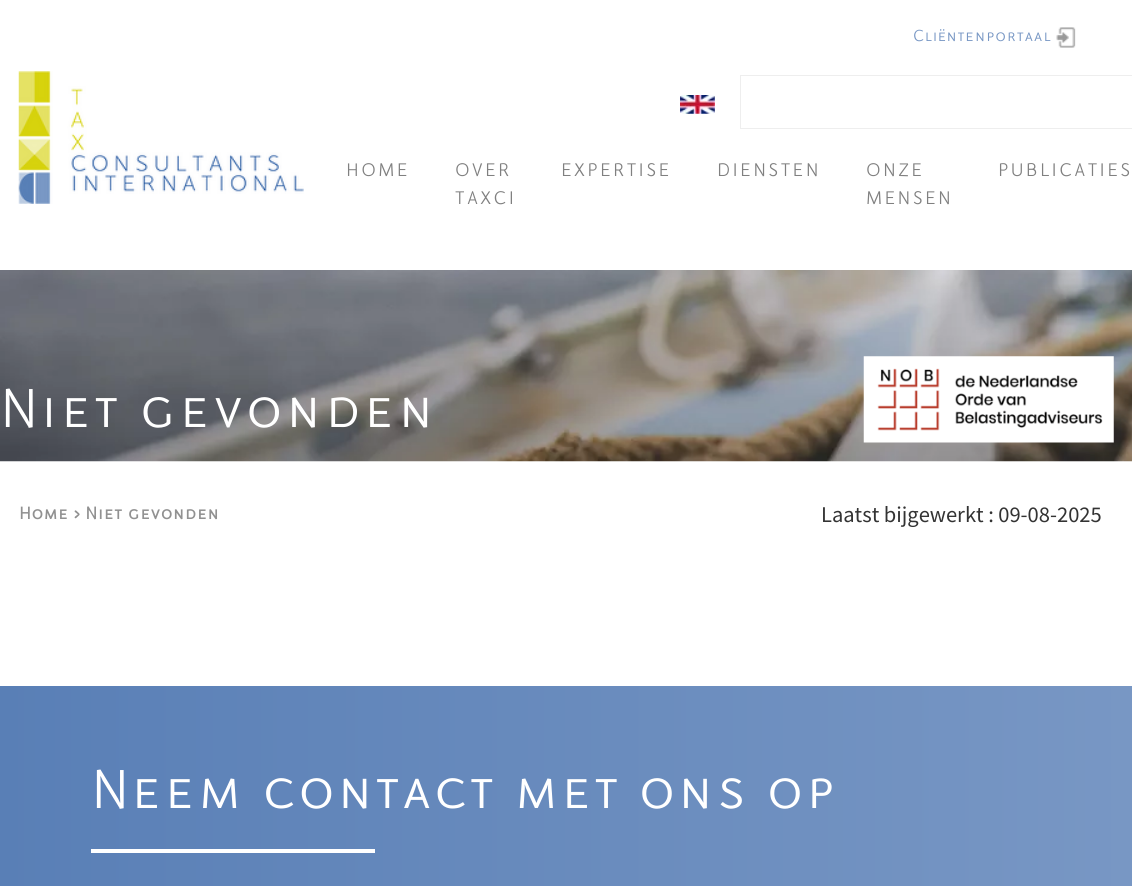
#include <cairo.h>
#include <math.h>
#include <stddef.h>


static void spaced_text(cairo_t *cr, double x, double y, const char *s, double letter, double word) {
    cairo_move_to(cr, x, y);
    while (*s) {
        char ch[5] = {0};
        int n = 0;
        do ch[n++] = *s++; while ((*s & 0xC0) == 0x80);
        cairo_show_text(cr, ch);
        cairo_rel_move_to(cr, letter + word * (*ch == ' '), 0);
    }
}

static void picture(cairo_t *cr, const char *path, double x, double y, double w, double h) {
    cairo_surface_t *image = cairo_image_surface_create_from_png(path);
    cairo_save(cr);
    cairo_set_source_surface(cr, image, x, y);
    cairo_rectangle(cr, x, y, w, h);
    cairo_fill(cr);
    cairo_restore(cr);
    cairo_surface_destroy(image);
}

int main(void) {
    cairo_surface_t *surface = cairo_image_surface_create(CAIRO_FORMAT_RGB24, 1132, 886);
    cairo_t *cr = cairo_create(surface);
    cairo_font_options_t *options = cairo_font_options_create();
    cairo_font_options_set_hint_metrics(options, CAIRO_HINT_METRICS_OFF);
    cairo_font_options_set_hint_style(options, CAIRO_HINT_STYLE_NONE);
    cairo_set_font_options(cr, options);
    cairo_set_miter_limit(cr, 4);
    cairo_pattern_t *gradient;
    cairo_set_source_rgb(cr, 1, 1, 1);
    cairo_paint(cr);
    cairo_select_font_face(cr, "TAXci", CAIRO_FONT_SLANT_NORMAL, CAIRO_FONT_WEIGHT_NORMAL);
    cairo_set_font_size(cr, 17.5);
    cairo_set_source_rgb(cr, 0.471, 0.592, 0.769);
    cairo_move_to(cr, 913, 41);
    cairo_show_text(cr, "Cliëntenportaal");
    picture(cr, "img1.png", 1056, 27, 20, 21);
    picture(cr, "img2.png", 18, 71, 286, 133);
    picture(cr, "img3.png", 680, 95, 35, 19);
    cairo_rectangle(cr, 740.5, 75.5, 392, 53);
    cairo_set_source_rgb(cr, 0.933, 0.933, 0.933);
    cairo_set_line_width(cr, 1);
    cairo_stroke(cr);
    cairo_set_font_size(cr, 20);
    cairo_set_source_rgb(cr, 0.502, 0.502, 0.502);
    spaced_text(cr, 346, 176, "HOME", 2.25, 0);
    spaced_text(cr, 455, 176, "OVER", 2.25, 0);
    spaced_text(cr, 455, 204, "TAXCI", 2.25, 0);
    spaced_text(cr, 561, 176, "EXPERTISE", 2.25, 0);
    spaced_text(cr, 717, 176, "DIENSTEN", 2.25, 0);
    spaced_text(cr, 866, 176, "ONZE", 2.25, 0);
    spaced_text(cr, 866, 204, "MENSEN", 2.25, 0);
    spaced_text(cr, 998, 176, "PUBLICATIES", 2.25, 0);
    picture(cr, "img4.png", 0, 270, 1132, 192);
    cairo_set_font_size(cr, 60);
    cairo_set_source_rgb(cr, 1, 1, 1);
    spaced_text(cr, 0, 427, "Niet gevonden", 0.6, 0);
    picture(cr, "img5.png", 863, 356, 251, 87);
    cairo_select_font_face(cr, "TAXci", CAIRO_FONT_SLANT_NORMAL, CAIRO_FONT_WEIGHT_BOLD);
    cairo_set_font_size(cr, 18.75);
    cairo_set_source_rgb(cr, 0.569, 0.569, 0.569);
    cairo_move_to(cr, 19, 519);
    cairo_show_text(cr, "Home > Niet gevonden");
    cairo_select_font_face(cr, "Source Sans Pro", CAIRO_FONT_SLANT_NORMAL, CAIRO_FONT_WEIGHT_NORMAL);
    cairo_set_font_size(cr, 22.5);
    cairo_set_source_rgb(cr, 0.2, 0.2, 0.2);
    cairo_move_to(cr, 821, 522);
    cairo_show_text(cr, "Laatst bijgewerkt : 09-08-2025");
    gradient = cairo_pattern_create_linear(0, 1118, 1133, 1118);
    cairo_pattern_add_color_stop_rgba(gradient, 0, 0.118, 0.341, 0.6, 1);
    cairo_pattern_add_color_stop_rgba(gradient, 0, 0.349, 0.498, 0.714, 1);
    cairo_pattern_add_color_stop_rgba(gradient, 1, 0.471, 0.592, 0.769, 1);
    cairo_set_source(cr, gradient);
    cairo_pattern_destroy(gradient);
    cairo_rectangle(cr, 0, 686, 1132, 200);
    cairo_fill(cr);
    cairo_select_font_face(cr, "TAXci", CAIRO_FONT_SLANT_NORMAL, CAIRO_FONT_WEIGHT_NORMAL);
    cairo_set_font_size(cr, 60);
    cairo_set_source_rgb(cr, 1, 1, 1);
    cairo_move_to(cr, 91, 808);
    cairo_show_text(cr, "Neem contact met ons op");
    cairo_rectangle(cr, 91, 849, 284, 4);
    cairo_fill(cr);
    cairo_surface_write_to_png(surface, "page.png");
    cairo_font_options_destroy(options);
    cairo_destroy(cr);
    cairo_surface_destroy(surface);
    return 0;
}
